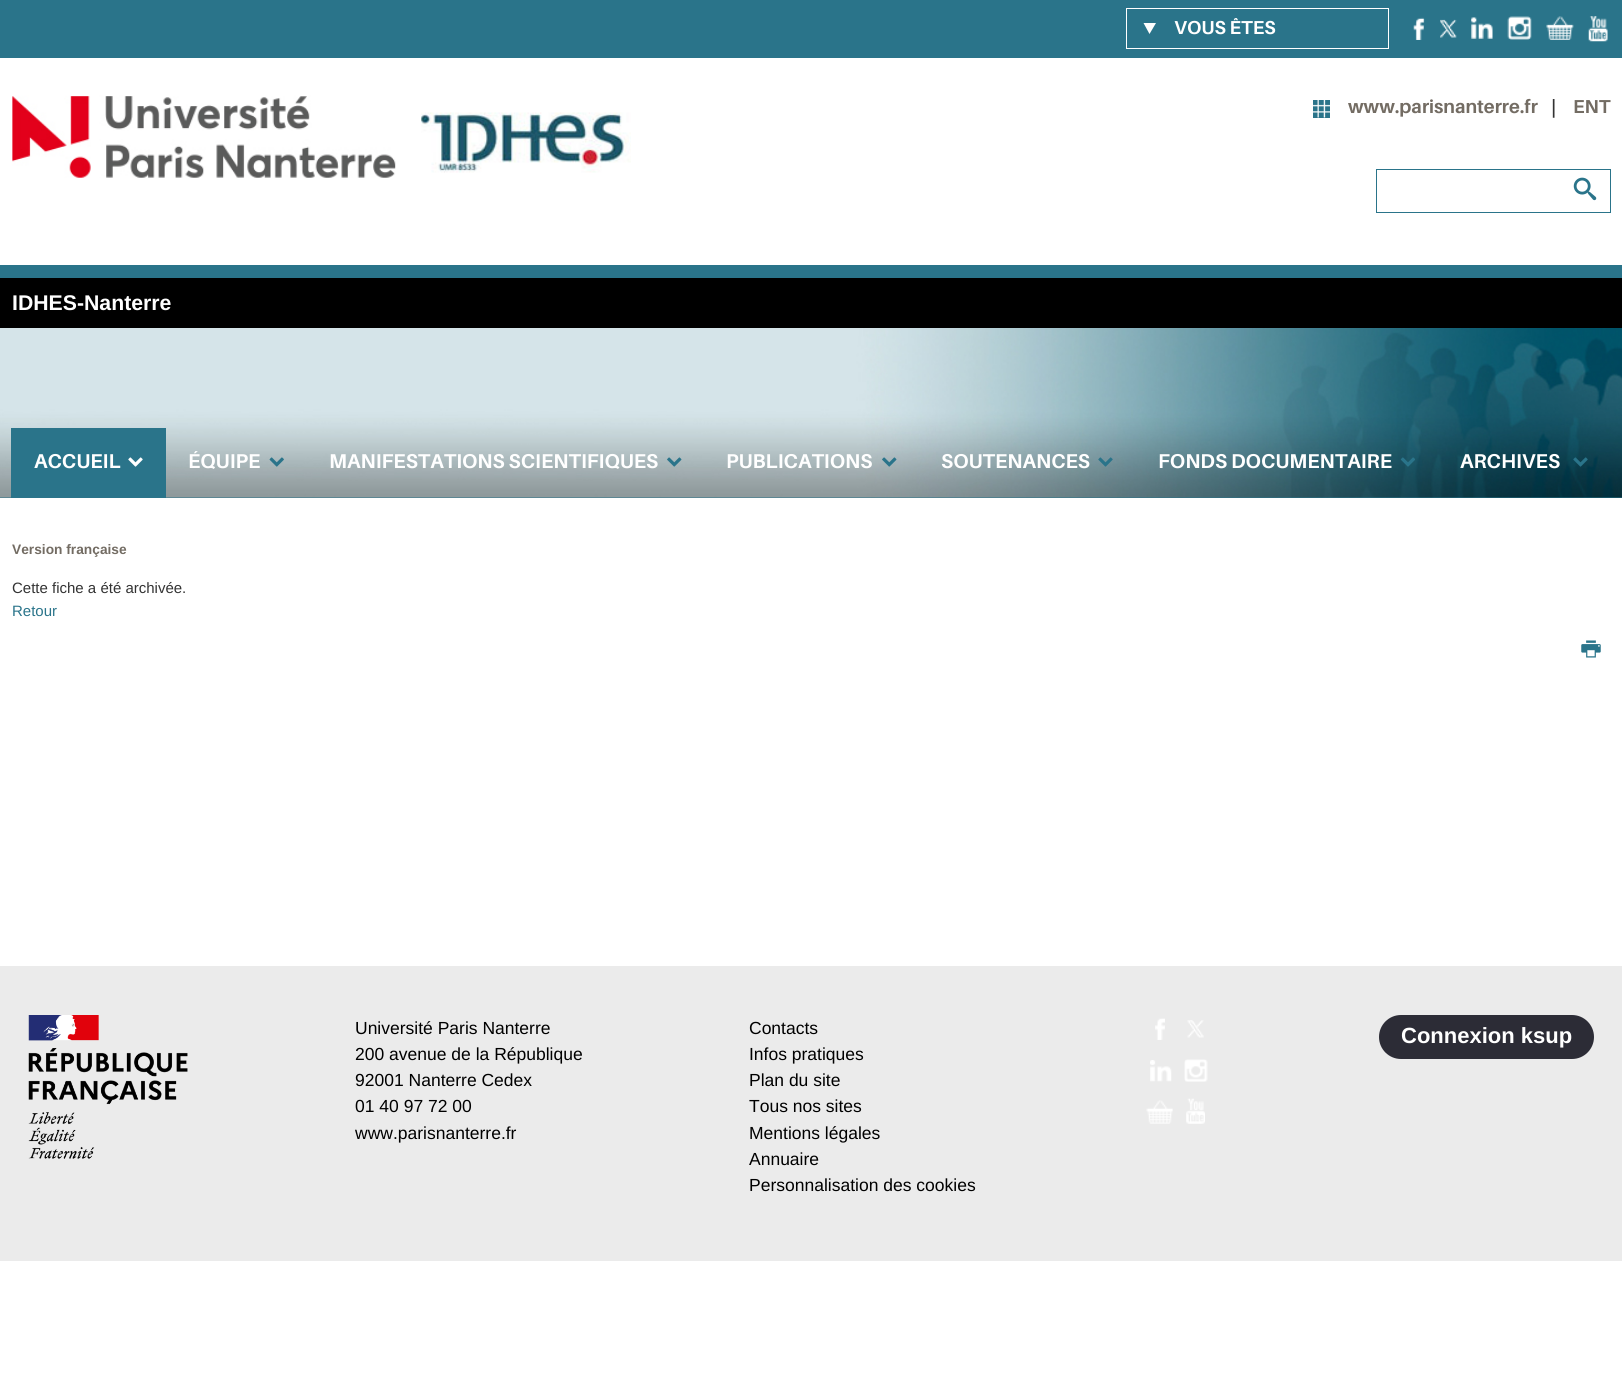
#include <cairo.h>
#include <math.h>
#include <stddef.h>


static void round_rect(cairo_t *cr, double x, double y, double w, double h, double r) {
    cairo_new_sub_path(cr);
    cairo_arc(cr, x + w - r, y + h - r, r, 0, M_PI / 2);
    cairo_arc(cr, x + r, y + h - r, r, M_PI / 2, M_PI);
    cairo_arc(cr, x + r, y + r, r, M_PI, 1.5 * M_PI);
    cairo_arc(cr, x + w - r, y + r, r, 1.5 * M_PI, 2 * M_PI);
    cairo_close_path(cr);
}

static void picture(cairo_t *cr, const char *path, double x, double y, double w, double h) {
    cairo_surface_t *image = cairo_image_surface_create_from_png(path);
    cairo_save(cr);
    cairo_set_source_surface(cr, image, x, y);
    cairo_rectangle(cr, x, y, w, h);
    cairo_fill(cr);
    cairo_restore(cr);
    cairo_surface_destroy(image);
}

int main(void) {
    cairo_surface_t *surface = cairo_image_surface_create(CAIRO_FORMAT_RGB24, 1622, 1383);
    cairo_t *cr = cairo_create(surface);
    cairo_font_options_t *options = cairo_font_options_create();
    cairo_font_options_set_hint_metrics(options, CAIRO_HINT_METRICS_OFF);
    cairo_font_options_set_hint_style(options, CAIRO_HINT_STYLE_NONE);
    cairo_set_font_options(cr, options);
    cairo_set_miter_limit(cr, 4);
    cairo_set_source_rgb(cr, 1, 1, 1);
    cairo_paint(cr);
    cairo_set_source_rgb(cr, 0.165, 0.455, 0.541);
    cairo_rectangle(cr, 0, 0, 1622, 58);
    cairo_fill(cr);
    cairo_rectangle(cr, 1126.5, 8.5, 262, 40);
    cairo_set_source_rgb(cr, 1, 1, 1);
    cairo_set_line_width(cr, 1);
    cairo_stroke(cr);
    cairo_new_path(cr);
    cairo_move_to(cr, 1143.5, 23);
    cairo_line_to(cr, 1156, 23);
    cairo_line_to(cr, 1149.5, 34);
    cairo_close_path(cr);
    cairo_fill(cr);
    cairo_select_font_face(cr, "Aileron", CAIRO_FONT_SLANT_NORMAL, CAIRO_FONT_WEIGHT_BOLD);
    cairo_set_font_size(cr, 18.75);
    cairo_move_to(cr, 1174, 34);
    cairo_show_text(cr, "VOUS ÊTES");
    picture(cr, "img1.png", 1413, 17, 12, 23);
    picture(cr, "img2.png", 1440, 19, 17, 19);
    picture(cr, "img3.png", 1471, 17, 22, 22);
    picture(cr, "img4.png", 1507, 16, 25, 24);
    picture(cr, "img5.png", 1546, 16, 28, 24);
    picture(cr, "img6.png", 1588, 16, 20, 26);
    picture(cr, "img7.png", 12, 95, 384, 83);
    picture(cr, "img8.png", 421, 112, 210, 61);
    cairo_set_source_rgb(cr, 0.165, 0.455, 0.541);
    cairo_rectangle(cr, 1313, 100, 17, 18);
    cairo_fill(cr);
    picture(cr, "img9.png", 1313, 100, 17, 18);
    cairo_set_source_rgb(cr, 0.451, 0.424, 0.388);
    cairo_move_to(cr, 1348, 113);
    cairo_show_text(cr, "www.parisnanterre.fr");
    cairo_set_source_rgb(cr, 0.2, 0.2, 0.2);
    cairo_move_to(cr, 1551, 114);
    cairo_show_text(cr, "|");
    cairo_set_source_rgb(cr, 0.451, 0.424, 0.388);
    cairo_move_to(cr, 1573, 113);
    cairo_show_text(cr, "ENT");
    cairo_rectangle(cr, 1376.5, 169.5, 234, 43);
    cairo_set_source_rgb(cr, 0.165, 0.455, 0.541);
    cairo_stroke(cr);
    picture(cr, "img10.png", 1573, 177, 24, 24);
    cairo_set_source_rgb(cr, 0, 0, 0);
    cairo_rectangle(cr, 0, 278, 1622, 50);
    cairo_fill(cr);
    cairo_set_source_rgb(cr, 0.165, 0.455, 0.541);
    cairo_rectangle(cr, 0, 265, 1622, 13);
    cairo_fill(cr);
    cairo_select_font_face(cr, "Liberation Sans", CAIRO_FONT_SLANT_NORMAL, CAIRO_FONT_WEIGHT_BOLD);
    cairo_set_font_size(cr, 21.25);
    cairo_set_source_rgb(cr, 1, 1, 1);
    cairo_move_to(cr, 12, 310);
    cairo_show_text(cr, "IDHES-Nanterre");
    cairo_set_source_rgb(cr, 0.165, 0.455, 0.541);
    cairo_rectangle(cr, 0, 497, 1622, 1);
    cairo_fill(cr);
    picture(cr, "img11.png", 0, 328, 1622, 170);
    cairo_rectangle(cr, 11, 428, 155, 70);
    cairo_fill(cr);
    cairo_select_font_face(cr, "Aileron", CAIRO_FONT_SLANT_NORMAL, CAIRO_FONT_WEIGHT_BOLD);
    cairo_set_font_size(cr, 20);
    cairo_set_source_rgb(cr, 1, 1, 1);
    cairo_move_to(cr, 34, 468);
    cairo_show_text(cr, "ACCUEIL");
    picture(cr, "img12.png", 128, 457, 15, 10);
    cairo_move_to(cr, 188, 468);
    cairo_show_text(cr, "ÉQUIPE");
    picture(cr, "img13.png", 269, 457, 15, 10);
    cairo_move_to(cr, 329, 468);
    cairo_show_text(cr, "MANIFESTATIONS SCIENTIFIQUES");
    picture(cr, "img14.png", 667, 457, 15, 10);
    cairo_move_to(cr, 726, 468);
    cairo_show_text(cr, "PUBLICATIONS");
    picture(cr, "img15.png", 882, 457, 15, 10);
    cairo_move_to(cr, 941, 468);
    cairo_show_text(cr, "SOUTENANCES");
    picture(cr, "img16.png", 1098, 457, 15, 10);
    cairo_move_to(cr, 1158, 468);
    cairo_show_text(cr, "FONDS DOCUMENTAIRE");
    picture(cr, "img17.png", 1400, 457, 15, 10);
    cairo_move_to(cr, 1460, 468);
    cairo_show_text(cr, "ARCHIVES");
    picture(cr, "img18.png", 1573, 457, 15, 10);
    cairo_select_font_face(cr, "Liberation Sans", CAIRO_FONT_SLANT_NORMAL, CAIRO_FONT_WEIGHT_BOLD);
    cairo_set_font_size(cr, 13.75);
    cairo_set_source_rgb(cr, 0.451, 0.424, 0.388);
    cairo_move_to(cr, 12, 554);
    cairo_show_text(cr, "Version française");
    cairo_select_font_face(cr, "Liberation Sans", CAIRO_FONT_SLANT_NORMAL, CAIRO_FONT_WEIGHT_NORMAL);
    cairo_set_font_size(cr, 15);
    cairo_set_source_rgb(cr, 0.2, 0.2, 0.2);
    cairo_move_to(cr, 12, 593);
    cairo_show_text(cr, "Cette fiche a été archivée.");
    cairo_set_source_rgb(cr, 0.165, 0.455, 0.541);
    cairo_move_to(cr, 12, 616);
    cairo_show_text(cr, "Retour");
    picture(cr, "img19.png", 1581, 640, 20, 18);
    cairo_set_source_rgb(cr, 0.918, 0.918, 0.918);
    cairo_rectangle(cr, 0, 966, 1622, 295);
    cairo_fill(cr);
    picture(cr, "img20.png", 28, 1015, 160, 144);
    cairo_set_font_size(cr, 17.5);
    cairo_set_source_rgb(cr, 0, 0, 0);
    cairo_move_to(cr, 355, 1034);
    cairo_show_text(cr, "Université Paris Nanterre");
    cairo_move_to(cr, 355, 1060);
    cairo_show_text(cr, "200 avenue de la République");
    cairo_move_to(cr, 355, 1086);
    cairo_show_text(cr, "92001 Nanterre Cedex");
    cairo_move_to(cr, 355, 1112);
    cairo_show_text(cr, "01 40 97 72 00");
    cairo_move_to(cr, 355, 1139);
    cairo_show_text(cr, "www.parisnanterre.fr");
    cairo_move_to(cr, 749, 1034);
    cairo_show_text(cr, "Contacts");
    cairo_move_to(cr, 749, 1060);
    cairo_show_text(cr, "Infos pratiques");
    cairo_move_to(cr, 749, 1086);
    cairo_show_text(cr, "Plan du site");
    cairo_move_to(cr, 749, 1112);
    cairo_show_text(cr, "Tous nos sites");
    cairo_move_to(cr, 749, 1139);
    cairo_show_text(cr, "Mentions légales");
    cairo_move_to(cr, 749, 1165);
    cairo_show_text(cr, "Annuaire");
    cairo_move_to(cr, 749, 1191);
    cairo_show_text(cr, "Personnalisation des cookies");
    picture(cr, "img21.png", 1155, 1018, 10, 22);
    picture(cr, "img22.png", 1187, 1020, 17, 18);
    picture(cr, "img23.png", 1150, 1060, 22, 22);
    picture(cr, "img24.png", 1184, 1059, 24, 23);
    picture(cr, "img25.png", 1146, 1100, 27, 24);
    picture(cr, "img26.png", 1186, 1098, 19, 26);
    cairo_set_source_rgb(cr, 0.173, 0.173, 0.212);
    round_rect(cr, 1379, 1015, 215, 44, 22);
    cairo_fill(cr);
    cairo_select_font_face(cr, "Liberation Sans", CAIRO_FONT_SLANT_NORMAL, CAIRO_FONT_WEIGHT_BOLD);
    cairo_set_font_size(cr, 22);
    cairo_set_source_rgb(cr, 1, 1, 1);
    cairo_move_to(cr, 1401, 1043);
    cairo_show_text(cr, "Connexion ksup");
    cairo_surface_write_to_png(surface, "page.png");
    cairo_font_options_destroy(options);
    cairo_destroy(cr);
    cairo_surface_destroy(surface);
    return 0;
}
